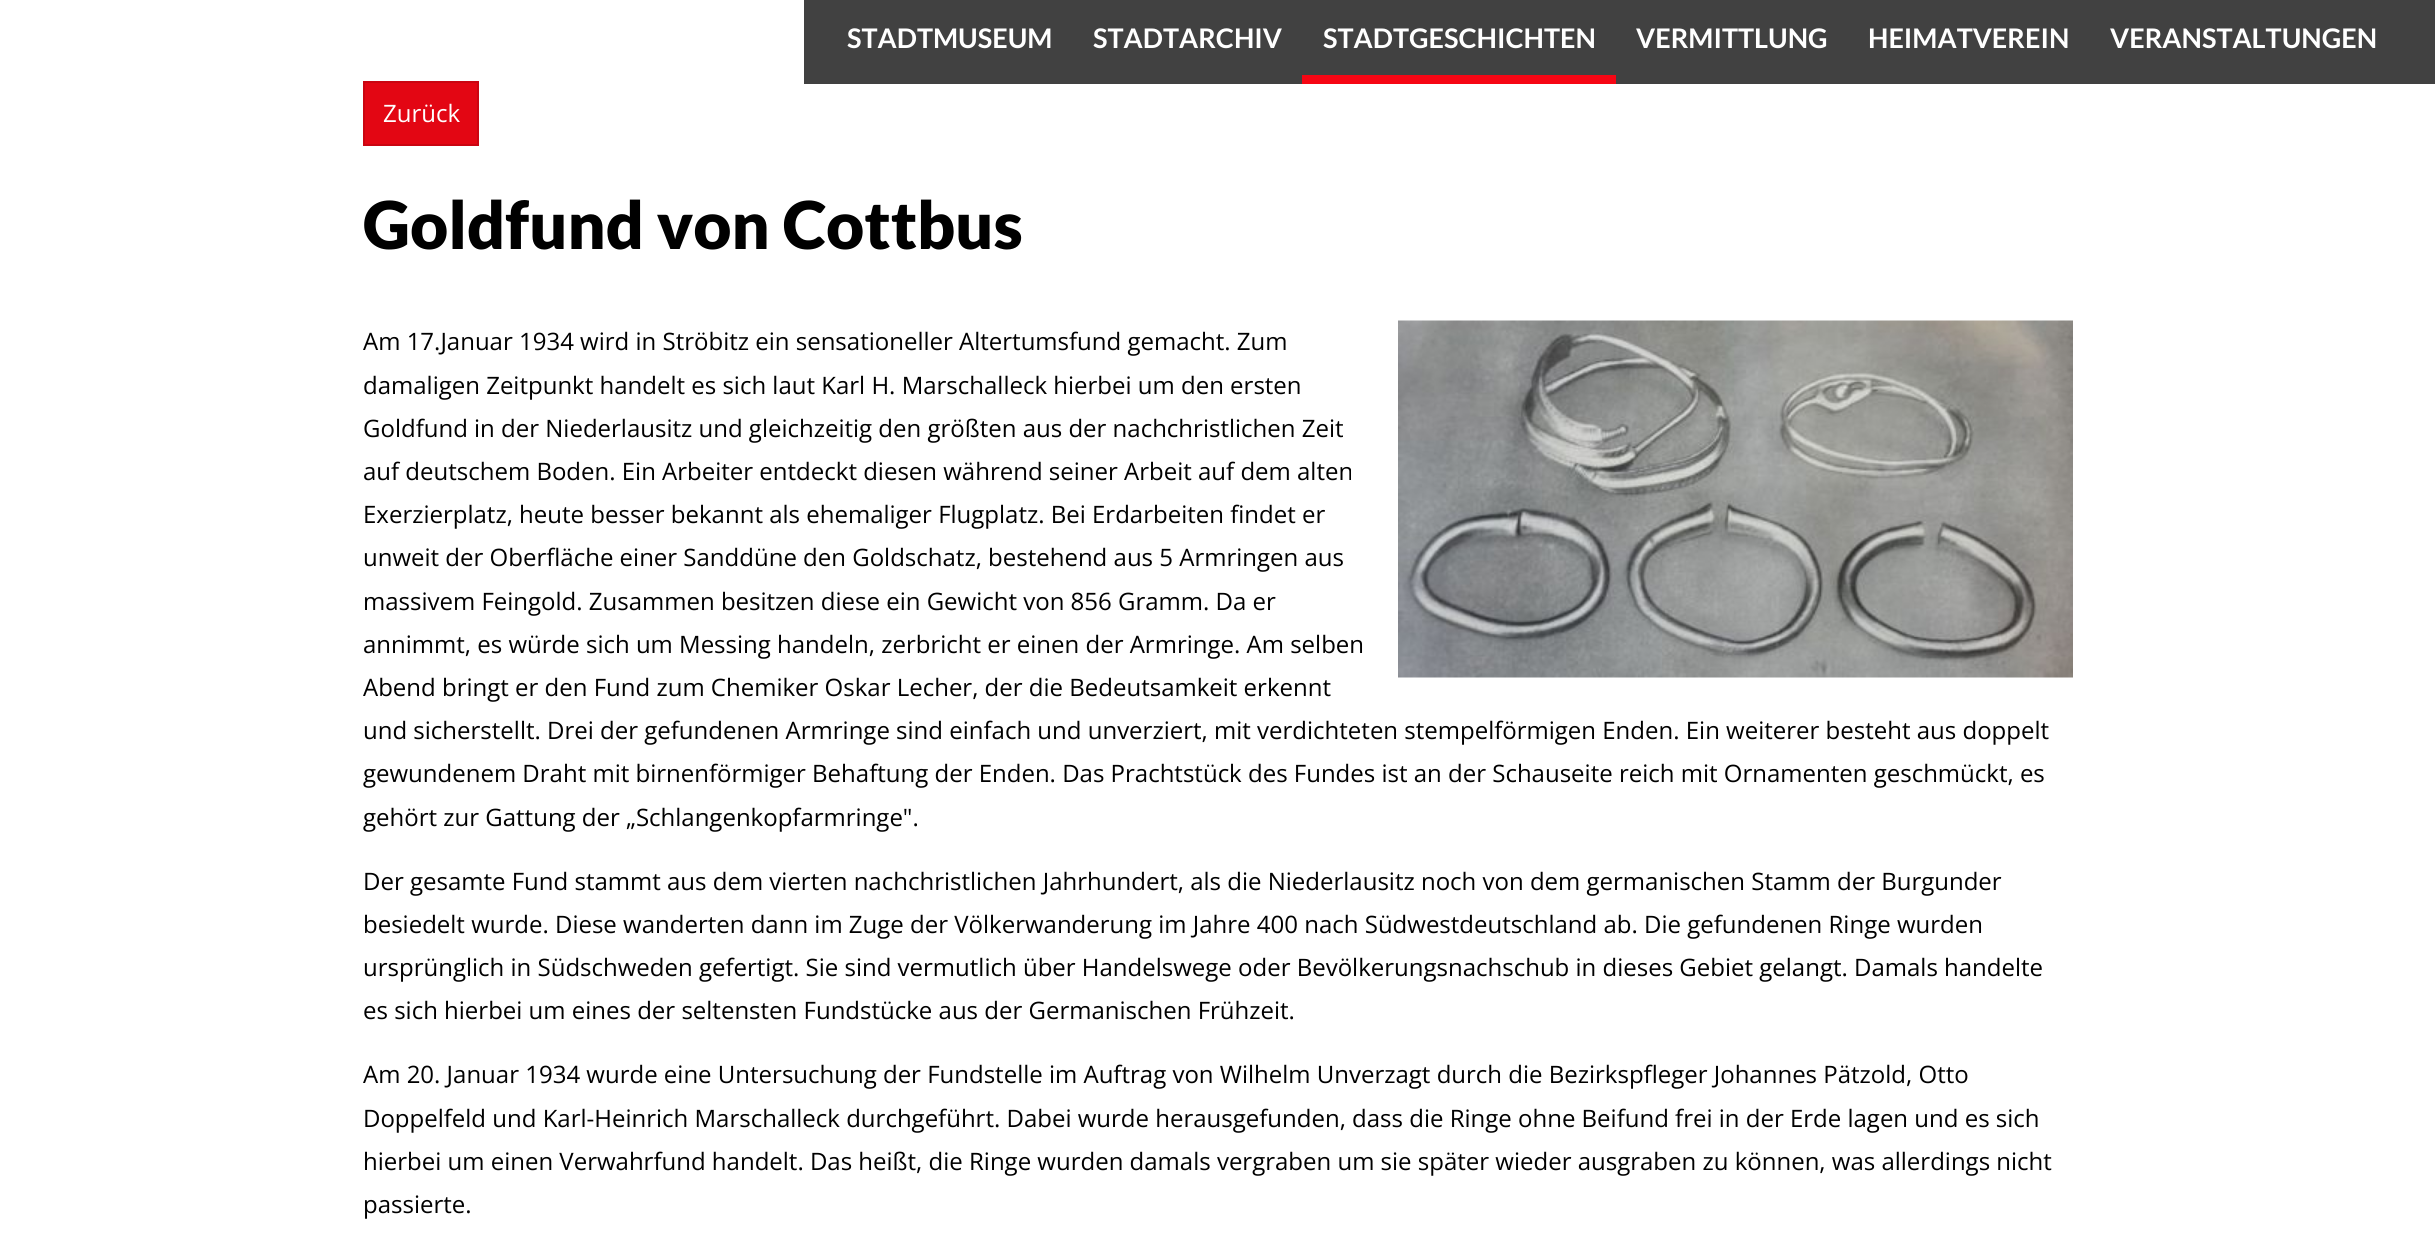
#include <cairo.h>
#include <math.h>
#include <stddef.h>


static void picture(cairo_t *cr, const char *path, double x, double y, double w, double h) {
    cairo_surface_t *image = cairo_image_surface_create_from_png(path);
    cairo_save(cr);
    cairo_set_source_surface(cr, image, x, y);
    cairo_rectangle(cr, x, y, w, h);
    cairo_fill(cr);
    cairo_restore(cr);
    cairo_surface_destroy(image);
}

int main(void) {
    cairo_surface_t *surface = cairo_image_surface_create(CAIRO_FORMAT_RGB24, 2435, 1244);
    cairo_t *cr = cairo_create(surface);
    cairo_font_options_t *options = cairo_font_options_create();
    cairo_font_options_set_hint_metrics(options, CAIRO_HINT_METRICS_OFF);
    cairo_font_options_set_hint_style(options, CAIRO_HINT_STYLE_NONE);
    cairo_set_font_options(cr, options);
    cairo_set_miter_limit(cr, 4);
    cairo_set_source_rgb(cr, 1, 1, 1);
    cairo_paint(cr);
    cairo_set_source_rgb(cr, 0.255, 0.255, 0.255);
    cairo_rectangle(cr, 804, 0, 1631, 84);
    cairo_fill(cr);
    cairo_select_font_face(cr, "Lato", CAIRO_FONT_SLANT_NORMAL, CAIRO_FONT_WEIGHT_BOLD);
    cairo_set_font_size(cr, 27);
    cairo_set_source_rgb(cr, 1, 1, 1);
    cairo_move_to(cr, 847, 48);
    cairo_show_text(cr, "STADTMUSEUM");
    cairo_move_to(cr, 1093, 48);
    cairo_show_text(cr, "STADTARCHIV");
    cairo_set_source_rgb(cr, 0.961, 0.024, 0.082);
    cairo_rectangle(cr, 1302, 75, 314, 9);
    cairo_fill(cr);
    cairo_set_source_rgb(cr, 1, 1, 1);
    cairo_move_to(cr, 1323, 48);
    cairo_show_text(cr, "STADTGESCHICHTEN");
    cairo_move_to(cr, 1636, 48);
    cairo_show_text(cr, "VERMITTLUNG");
    cairo_move_to(cr, 1868, 48);
    cairo_show_text(cr, "HEIMATVEREIN");
    cairo_move_to(cr, 2110, 48);
    cairo_show_text(cr, "VERANSTALTUNGEN");
    cairo_set_source_rgb(cr, 0.89, 0.024, 0.075);
    cairo_rectangle(cr, 364, 82, 114, 63);
    cairo_fill_preserve(cr);
    cairo_set_source_rgb(cr, 0.792, 0.02, 0.067);
    cairo_stroke(cr);
    cairo_select_font_face(cr, "Open Sans", CAIRO_FONT_SLANT_NORMAL, CAIRO_FONT_WEIGHT_NORMAL);
    cairo_set_font_size(cr, 24);
    cairo_set_source_rgb(cr, 1, 1, 1);
    cairo_move_to(cr, 383, 122);
    cairo_show_text(cr, "Zurück");
    cairo_select_font_face(cr, "Lato Black", CAIRO_FONT_SLANT_NORMAL, CAIRO_FONT_WEIGHT_NORMAL);
    cairo_set_font_size(cr, 66);
    cairo_set_source_rgb(cr, 0, 0, 0);
    cairo_move_to(cr, 363, 249);
    cairo_show_text(cr, "Goldfund von Cottbus");
    picture(cr, "img1.png", 1398, 320, 675, 358);
    cairo_select_font_face(cr, "Open Sans", CAIRO_FONT_SLANT_NORMAL, CAIRO_FONT_WEIGHT_NORMAL);
    cairo_set_font_size(cr, 24);
    cairo_move_to(cr, 363, 350);
    cairo_show_text(cr, "Am 17.Januar 1934 wird in Ströbitz ein sensationeller Altertumsfund gemacht. Zum");
    cairo_move_to(cr, 363, 394);
    cairo_show_text(cr, "damaligen Zeitpunkt handelt es sich laut Karl H. Marschalleck hierbei um den ersten");
    cairo_move_to(cr, 363, 437);
    cairo_show_text(cr, "Goldfund in der Niederlausitz und gleichzeitig den größten aus der nachchristlichen Zeit");
    cairo_move_to(cr, 363, 480);
    cairo_show_text(cr, "auf deutschem Boden. Ein Arbeiter entdeckt diesen während seiner Arbeit auf dem alten");
    cairo_move_to(cr, 363, 523);
    cairo_show_text(cr, "Exerzierplatz, heute besser bekannt als ehemaliger Flugplatz. Bei Erdarbeiten findet er");
    cairo_move_to(cr, 363, 566);
    cairo_show_text(cr, "unweit der Oberfläche einer Sanddüne den Goldschatz, bestehend aus 5 Armringen aus");
    cairo_move_to(cr, 363, 610);
    cairo_show_text(cr, "massivem Feingold. Zusammen besitzen diese ein Gewicht von 856 Gramm. Da er");
    cairo_move_to(cr, 363, 653);
    cairo_show_text(cr, "annimmt, es würde sich um Messing handeln, zerbricht er einen der Armringe. Am selben");
    cairo_move_to(cr, 363, 696);
    cairo_show_text(cr, "Abend bringt er den Fund zum Chemiker Oskar Lecher, der die Bedeutsamkeit erkennt");
    cairo_move_to(cr, 363, 739);
    cairo_show_text(cr, "und sicherstellt. Drei der gefundenen Armringe sind einfach und unverziert, mit verdichteten stempelförmigen Enden. Ein weiterer besteht aus doppelt");
    cairo_move_to(cr, 363, 782);
    cairo_show_text(cr, "gewundenem Draht mit birnenförmiger Behaftung der Enden. Das Prachtstück des Fundes ist an der Schauseite reich mit Ornamenten geschmückt, es");
    cairo_move_to(cr, 363, 826);
    cairo_show_text(cr, "gehört zur Gattung der „Schlangenkopfarmringe\".");
    cairo_move_to(cr, 363, 890);
    cairo_show_text(cr, "Der gesamte Fund stammt aus dem vierten nachchristlichen Jahrhundert, als die Niederlausitz noch von dem germanischen Stamm der Burgunder");
    cairo_move_to(cr, 363, 933);
    cairo_show_text(cr, "besiedelt wurde. Diese wanderten dann im Zuge der Völkerwanderung im Jahre 400 nach Südwestdeutschland ab. Die gefundenen Ringe wurden");
    cairo_move_to(cr, 363, 976);
    cairo_show_text(cr, "ursprünglich in Südschweden gefertigt. Sie sind vermutlich über Handelswege oder Bevölkerungsnachschub in dieses Gebiet gelangt. Damals handelte");
    cairo_move_to(cr, 363, 1019);
    cairo_show_text(cr, "es sich hierbei um eines der seltensten Fundstücke aus der Germanischen Frühzeit.");
    cairo_move_to(cr, 363, 1083);
    cairo_show_text(cr, "Am 20. Januar 1934 wurde eine Untersuchung der Fundstelle im Auftrag von Wilhelm Unverzagt durch die Bezirkspfleger Johannes Pätzold, Otto");
    cairo_move_to(cr, 363, 1127);
    cairo_show_text(cr, "Doppelfeld und Karl-Heinrich Marschalleck durchgeführt. Dabei wurde herausgefunden, dass die Ringe ohne Beifund frei in der Erde lagen und es sich");
    cairo_move_to(cr, 363, 1170);
    cairo_show_text(cr, "hierbei um einen Verwahrfund handelt. Das heißt, die Ringe wurden damals vergraben um sie später wieder ausgraben zu können, was allerdings nicht");
    cairo_move_to(cr, 363, 1213);
    cairo_show_text(cr, "passierte.");
    cairo_surface_write_to_png(surface, "page.png");
    cairo_font_options_destroy(options);
    cairo_destroy(cr);
    cairo_surface_destroy(surface);
    return 0;
}
